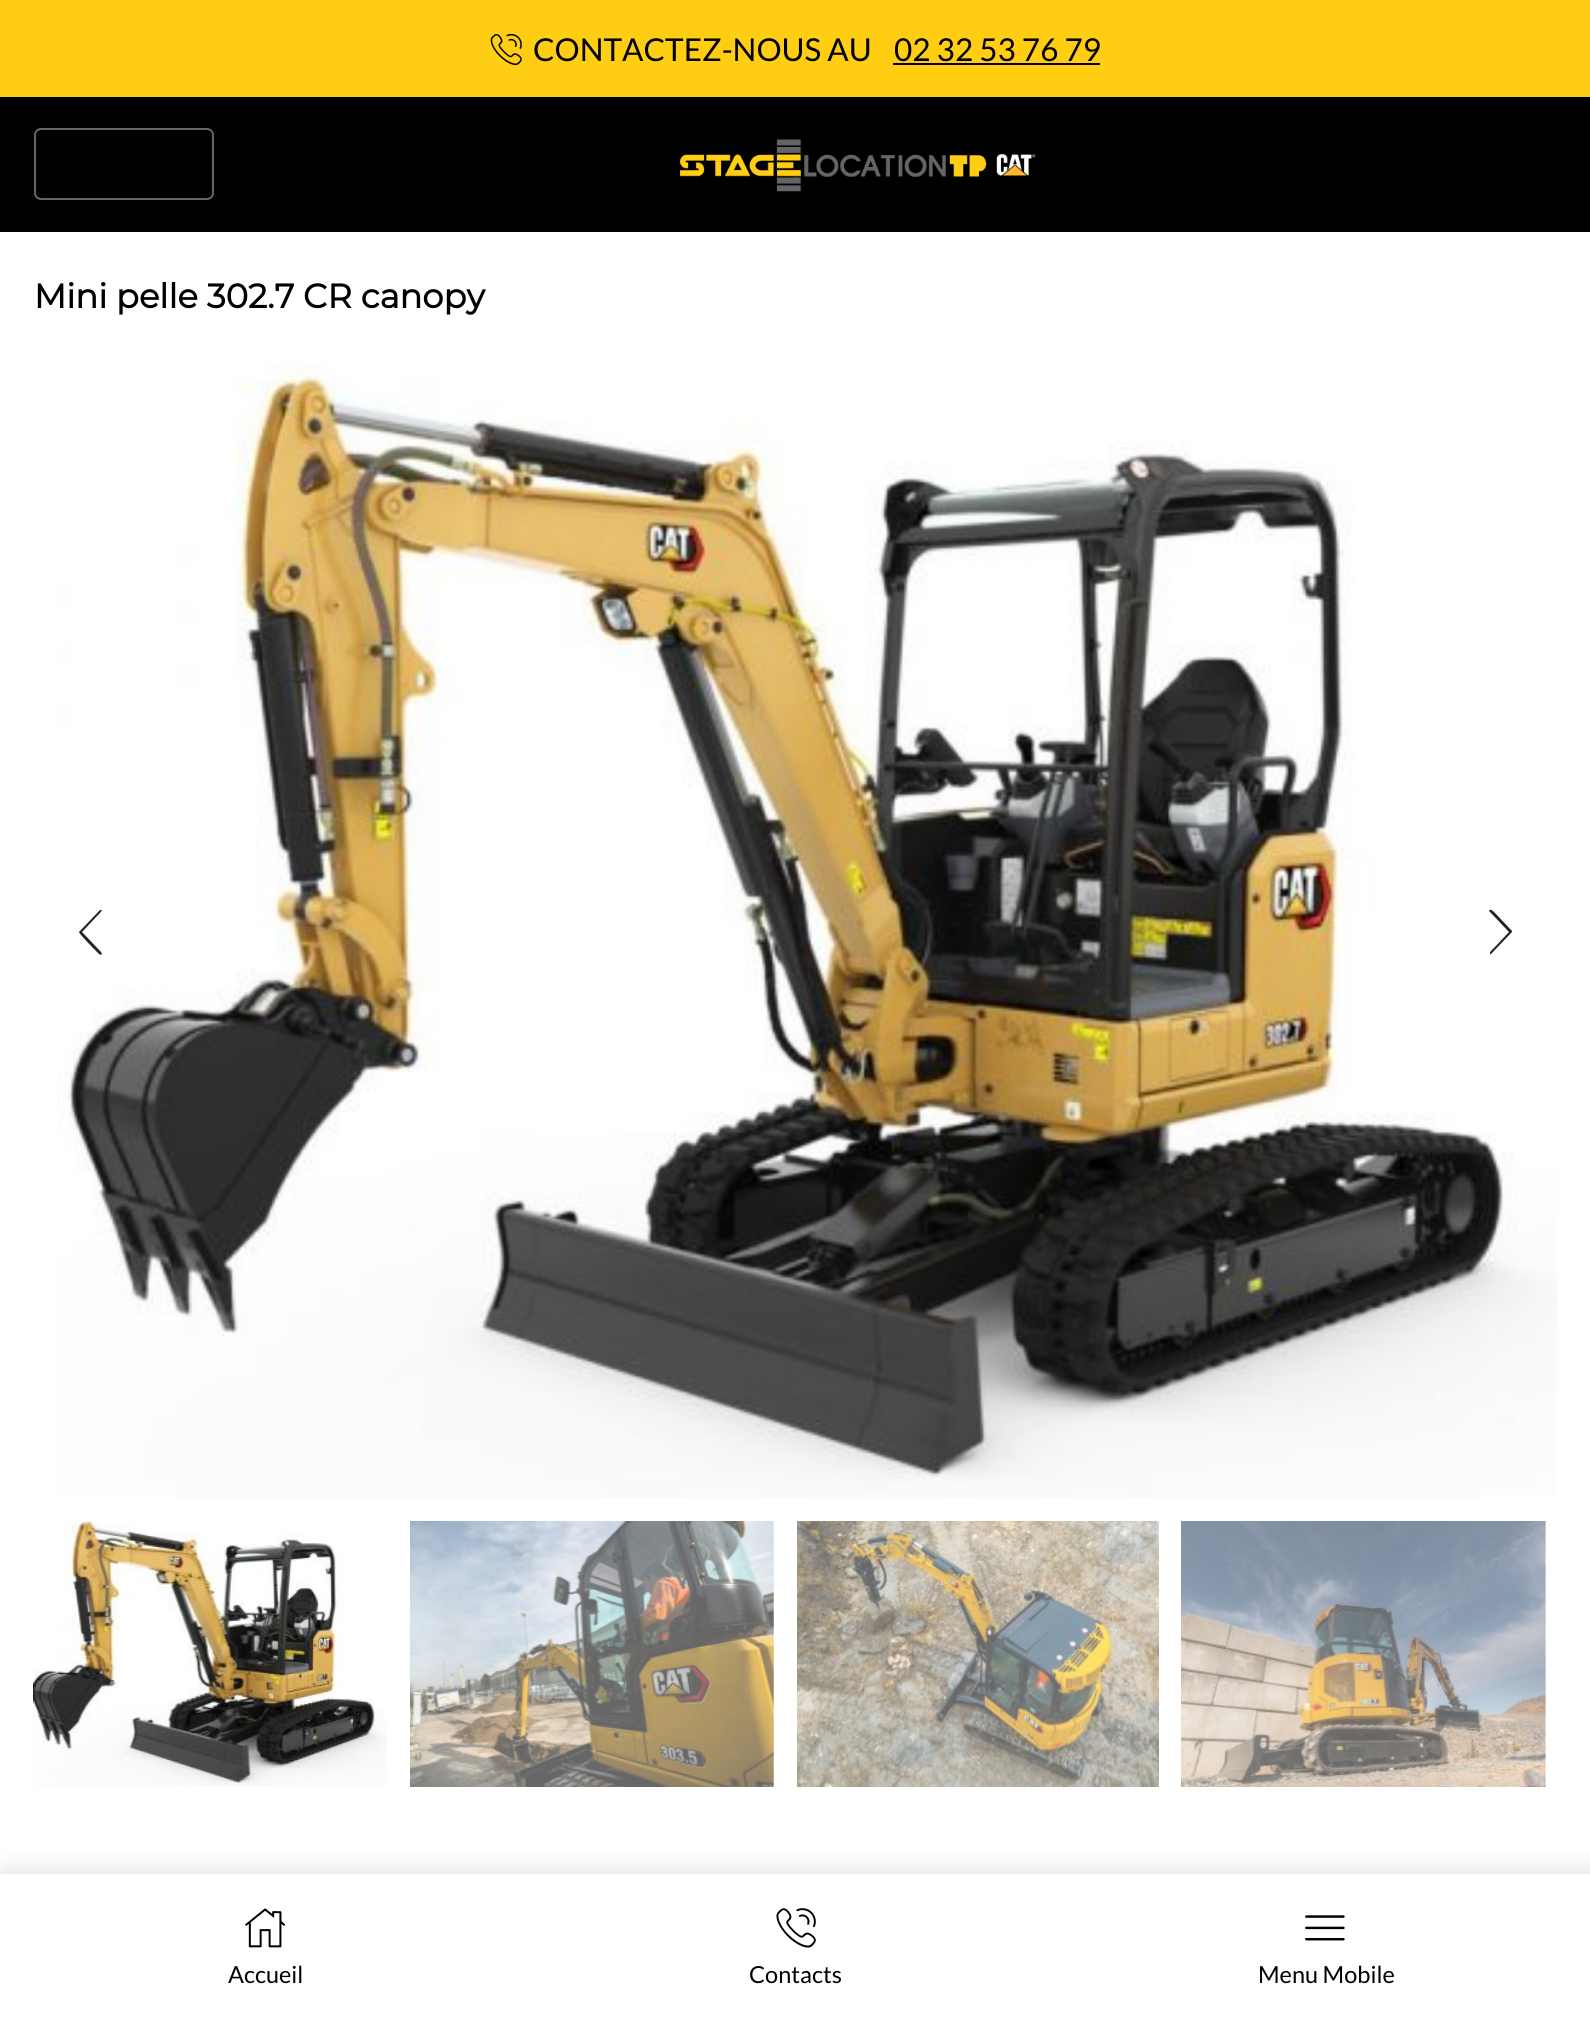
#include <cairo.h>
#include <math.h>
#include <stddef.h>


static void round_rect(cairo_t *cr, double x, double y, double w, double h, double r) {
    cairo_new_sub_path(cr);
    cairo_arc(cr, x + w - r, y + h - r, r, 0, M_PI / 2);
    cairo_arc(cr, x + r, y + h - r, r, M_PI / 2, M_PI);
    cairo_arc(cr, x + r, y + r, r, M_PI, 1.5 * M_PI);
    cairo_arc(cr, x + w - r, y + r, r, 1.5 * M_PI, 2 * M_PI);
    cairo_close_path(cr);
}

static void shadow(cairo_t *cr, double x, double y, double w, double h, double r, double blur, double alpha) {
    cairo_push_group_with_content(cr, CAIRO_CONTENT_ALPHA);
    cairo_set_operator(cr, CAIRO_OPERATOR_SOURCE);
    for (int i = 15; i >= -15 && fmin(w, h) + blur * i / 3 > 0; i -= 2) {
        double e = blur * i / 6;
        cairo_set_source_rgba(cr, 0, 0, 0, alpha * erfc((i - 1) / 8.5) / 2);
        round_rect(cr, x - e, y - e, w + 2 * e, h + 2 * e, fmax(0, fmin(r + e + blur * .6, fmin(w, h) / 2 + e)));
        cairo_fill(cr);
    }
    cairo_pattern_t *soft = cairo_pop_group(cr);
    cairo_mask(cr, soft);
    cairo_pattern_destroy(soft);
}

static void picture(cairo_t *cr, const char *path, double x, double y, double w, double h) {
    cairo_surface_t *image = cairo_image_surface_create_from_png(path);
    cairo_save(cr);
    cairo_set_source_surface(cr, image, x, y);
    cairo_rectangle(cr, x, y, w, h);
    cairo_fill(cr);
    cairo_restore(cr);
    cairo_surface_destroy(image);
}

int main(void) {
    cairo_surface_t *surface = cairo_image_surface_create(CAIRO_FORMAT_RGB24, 1590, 2026);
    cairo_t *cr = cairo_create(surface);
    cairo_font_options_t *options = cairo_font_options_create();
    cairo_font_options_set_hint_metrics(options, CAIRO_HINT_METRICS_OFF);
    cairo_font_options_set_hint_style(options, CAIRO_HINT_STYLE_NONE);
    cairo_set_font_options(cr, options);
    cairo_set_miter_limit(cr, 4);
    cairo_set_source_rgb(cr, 1, 1, 1);
    cairo_paint(cr);
    cairo_set_source_rgb(cr, 1, 0.804, 0.067);
    cairo_rectangle(cr, 0, 0, 1590, 97);
    cairo_fill(cr);
    picture(cr, "img1.png", 490, 33, 32, 33);
    cairo_select_font_face(cr, "Lato", CAIRO_FONT_SLANT_NORMAL, CAIRO_FONT_WEIGHT_NORMAL);
    cairo_set_font_size(cr, 31.5);
    cairo_set_source_rgb(cr, 0, 0, 0);
    cairo_move_to(cr, 533, 61);
    cairo_show_text(cr, "CONTACTEZ-NOUS AU");
    cairo_move_to(cr, 894, 61);
    cairo_show_text(cr, "02 32 53 76 79");
    cairo_rectangle(cr, 893, 63, 207, 2);
    cairo_fill(cr);
    cairo_rectangle(cr, 0, 97, 1590, 135);
    cairo_fill(cr);
    round_rect(cr, 35, 129, 178, 70, 6);
    cairo_set_source_rgb(cr, 0.4, 0.4, 0.4);
    cairo_stroke(cr);
    picture(cr, "img2.png", 680, 139, 356, 53);
    cairo_select_font_face(cr, "Montserrat", CAIRO_FONT_SLANT_NORMAL, CAIRO_FONT_WEIGHT_BOLD);
    cairo_set_font_size(cr, 33.75);
    cairo_set_source_rgb(cr, 0, 0, 0);
    cairo_move_to(cr, 34, 308);
    cairo_show_text(cr, "Mini pelle 302.7 CR canopy");
    picture(cr, "img3.png", 57, 363, 1500, 1135);
    cairo_set_source_rgb(cr, 0.133, 0.133, 0.133);
    cairo_new_path(cr);
    cairo_move_to(cr, 101, 952);
    cairo_line_to(cr, 82, 932);
    cairo_line_to(cr, 98, 915);
    cairo_curve_to(cr, 100, 913, 104, 909, 100, 910);
    cairo_line_to(cr, 79, 932);
    cairo_curve_to(cr, 79, 934, 97, 952, 99, 954);
    cairo_curve_to(cr, 100, 955, 101, 955, 102, 954);
    cairo_close_path(cr);
    cairo_fill(cr);
    cairo_new_path(cr);
    cairo_move_to(cr, 1512, 931);
    cairo_line_to(cr, 1495, 913);
    cairo_curve_to(cr, 1493, 911, 1490, 908, 1489, 911);
    cairo_line_to(cr, 1490, 912);
    cairo_line_to(cr, 1509, 932);
    cairo_line_to(cr, 1493, 949);
    cairo_curve_to(cr, 1493, 949, 1489, 952, 1490, 954);
    cairo_curve_to(cr, 1490, 954, 1490, 955, 1491, 954);
    cairo_line_to(cr, 1512, 932);
    cairo_close_path(cr);
    cairo_fill(cr);
    picture(cr, "img4.png", 33, 1521, 354, 266);
    picture(cr, "img5.png", 410, 1521, 364, 266);
    picture(cr, "img6.png", 797, 1521, 362, 266);
    picture(cr, "img7.png", 1181, 1521, 365, 266);
    cairo_set_source_rgb(cr, 0, 0, 0);
    shadow(cr, 5, 1874, 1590, 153, 0, 13.5, 0.15);
    cairo_set_source_rgb(cr, 1, 1, 1);
    cairo_rectangle(cr, 0, 1874, 1590, 152);
    cairo_fill(cr);
    picture(cr, "img8.png", 245, 1908, 40, 40);
    cairo_select_font_face(cr, "Lato", CAIRO_FONT_SLANT_NORMAL, CAIRO_FONT_WEIGHT_NORMAL);
    cairo_set_font_size(cr, 23.5);
    cairo_set_source_rgb(cr, 0, 0, 0);
    cairo_move_to(cr, 228, 1983);
    cairo_show_text(cr, "Accueil");
    picture(cr, "img9.png", 776, 1908, 40, 40);
    cairo_move_to(cr, 749, 1983);
    cairo_show_text(cr, "Contacts");
    picture(cr, "img10.png", 1305, 1915, 40, 26);
    cairo_move_to(cr, 1258, 1983);
    cairo_show_text(cr, "Menu Mobile");
    cairo_surface_write_to_png(surface, "page.png");
    cairo_font_options_destroy(options);
    cairo_destroy(cr);
    cairo_surface_destroy(surface);
    return 0;
}
